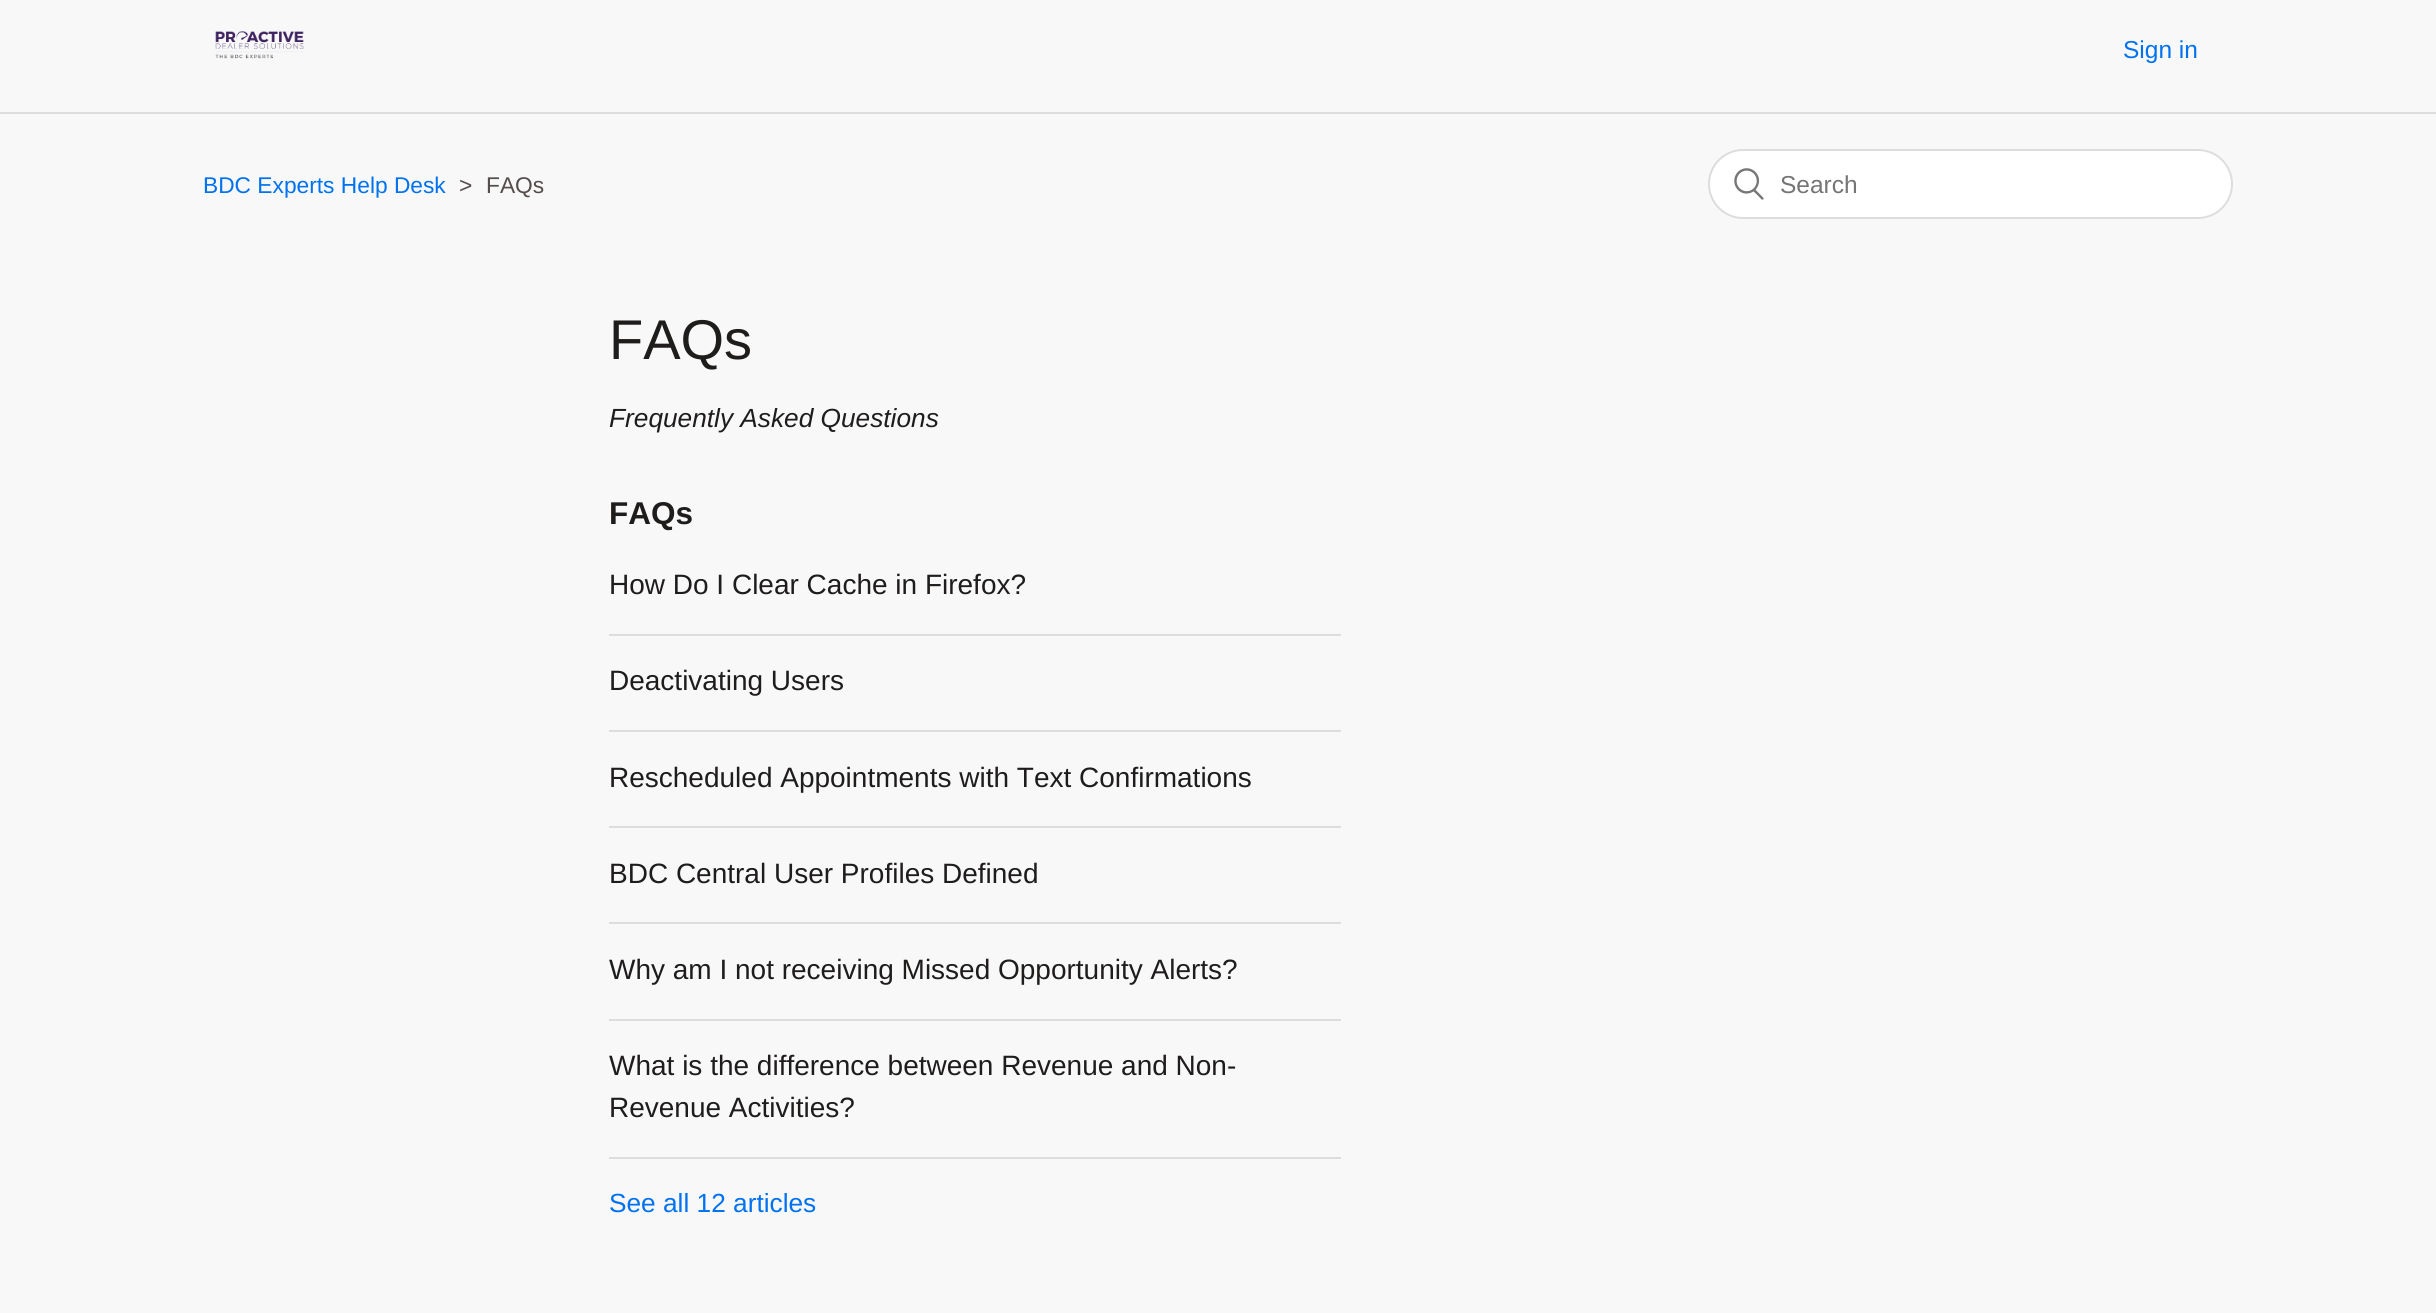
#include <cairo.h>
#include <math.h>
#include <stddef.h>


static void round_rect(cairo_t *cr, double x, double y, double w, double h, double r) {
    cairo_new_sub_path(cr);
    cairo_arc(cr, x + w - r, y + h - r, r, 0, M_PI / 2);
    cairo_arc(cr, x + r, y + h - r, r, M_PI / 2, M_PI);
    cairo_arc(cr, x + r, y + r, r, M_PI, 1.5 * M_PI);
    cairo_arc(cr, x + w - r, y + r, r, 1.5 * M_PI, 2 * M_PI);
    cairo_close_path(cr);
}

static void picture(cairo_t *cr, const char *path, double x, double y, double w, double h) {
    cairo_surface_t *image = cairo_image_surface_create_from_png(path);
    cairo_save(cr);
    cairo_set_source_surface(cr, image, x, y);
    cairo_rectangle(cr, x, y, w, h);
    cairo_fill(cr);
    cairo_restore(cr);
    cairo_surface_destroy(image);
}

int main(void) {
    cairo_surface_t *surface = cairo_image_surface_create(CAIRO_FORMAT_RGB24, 2436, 1313);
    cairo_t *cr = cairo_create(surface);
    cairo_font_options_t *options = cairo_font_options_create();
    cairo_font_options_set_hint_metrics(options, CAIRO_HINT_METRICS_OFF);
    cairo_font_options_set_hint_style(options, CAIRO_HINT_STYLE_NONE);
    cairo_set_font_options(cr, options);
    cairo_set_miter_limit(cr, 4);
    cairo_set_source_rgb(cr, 0.969, 0.969, 0.969);
    cairo_paint(cr);
    picture(cr, "img1.png", 215, 31, 89, 28);
    cairo_select_font_face(cr, "Liberation Sans", CAIRO_FONT_SLANT_NORMAL, CAIRO_FONT_WEIGHT_NORMAL);
    cairo_set_font_size(cr, 24.5);
    cairo_set_source_rgb(cr, 0, 0.447, 0.937);
    cairo_move_to(cr, 2123, 58);
    cairo_show_text(cr, "Sign in");
    cairo_set_source_rgb(cr, 0.867, 0.867, 0.867);
    cairo_rectangle(cr, 0, 112, 2436, 2);
    cairo_fill(cr);
    cairo_set_font_size(cr, 22.75);
    cairo_set_source_rgb(cr, 0, 0.447, 0.937);
    cairo_move_to(cr, 203, 193);
    cairo_show_text(cr, "BDC Experts Help Desk");
    cairo_set_source_rgb(cr, 0.333, 0.298, 0.298);
    cairo_move_to(cr, 459, 193);
    cairo_show_text(cr, ">");
    cairo_move_to(cr, 486, 193);
    cairo_show_text(cr, "FAQs");
    cairo_set_source_rgb(cr, 1, 1, 1);
    round_rect(cr, 1709, 150, 523, 68, 34);
    cairo_fill_preserve(cr);
    cairo_set_source_rgb(cr, 0.867, 0.867, 0.867);
    cairo_stroke(cr);
    picture(cr, "img2.png", 1734, 168, 30, 32);
    cairo_set_font_size(cr, 24.5);
    cairo_set_source_rgb(cr, 0.459, 0.459, 0.459);
    cairo_move_to(cr, 1780, 193);
    cairo_show_text(cr, "Search");
    cairo_set_font_size(cr, 56);
    cairo_set_source_rgb(cr, 0.122, 0.11, 0.11);
    cairo_move_to(cr, 609, 359);
    cairo_show_text(cr, "FAQs");
    cairo_select_font_face(cr, "Liberation Sans", CAIRO_FONT_SLANT_ITALIC, CAIRO_FONT_WEIGHT_NORMAL);
    cairo_set_font_size(cr, 26.25);
    cairo_move_to(cr, 609, 427);
    cairo_show_text(cr, "Frequently Asked Questions");
    cairo_select_font_face(cr, "Liberation Sans", CAIRO_FONT_SLANT_NORMAL, CAIRO_FONT_WEIGHT_BOLD);
    cairo_set_font_size(cr, 31.5);
    cairo_move_to(cr, 609, 524);
    cairo_show_text(cr, "FAQs");
    cairo_set_source_rgb(cr, 0.867, 0.867, 0.867);
    cairo_rectangle(cr, 609, 634, 732, 2);
    cairo_fill(cr);
    cairo_select_font_face(cr, "Liberation Sans", CAIRO_FONT_SLANT_NORMAL, CAIRO_FONT_WEIGHT_NORMAL);
    cairo_set_font_size(cr, 28);
    cairo_set_source_rgb(cr, 0.122, 0.11, 0.11);
    cairo_move_to(cr, 609, 594);
    cairo_show_text(cr, "How Do I Clear Cache in Firefox?");
    cairo_set_source_rgb(cr, 0.867, 0.867, 0.867);
    cairo_rectangle(cr, 609, 730, 732, 2);
    cairo_fill(cr);
    cairo_set_source_rgb(cr, 0.122, 0.11, 0.11);
    cairo_move_to(cr, 609, 690);
    cairo_show_text(cr, "Deactivating Users");
    cairo_set_source_rgb(cr, 0.867, 0.867, 0.867);
    cairo_rectangle(cr, 609, 826, 732, 2);
    cairo_fill(cr);
    cairo_set_source_rgb(cr, 0.122, 0.11, 0.11);
    cairo_move_to(cr, 609, 787);
    cairo_show_text(cr, "Rescheduled Appointments with Text Confirmations");
    cairo_set_source_rgb(cr, 0.867, 0.867, 0.867);
    cairo_rectangle(cr, 609, 922, 732, 2);
    cairo_fill(cr);
    cairo_set_source_rgb(cr, 0.122, 0.11, 0.11);
    cairo_move_to(cr, 609, 883);
    cairo_show_text(cr, "BDC Central User Profiles Defined");
    cairo_set_source_rgb(cr, 0.867, 0.867, 0.867);
    cairo_rectangle(cr, 609, 1019, 732, 2);
    cairo_fill(cr);
    cairo_set_source_rgb(cr, 0.122, 0.11, 0.11);
    cairo_move_to(cr, 609, 979);
    cairo_show_text(cr, "Why am I not receiving Missed Opportunity Alerts?");
    cairo_set_source_rgb(cr, 0.867, 0.867, 0.867);
    cairo_rectangle(cr, 609, 1157, 732, 2);
    cairo_fill(cr);
    cairo_set_source_rgb(cr, 0.122, 0.11, 0.11);
    cairo_move_to(cr, 609, 1075);
    cairo_show_text(cr, "What is the difference between Revenue and Non-");
    cairo_move_to(cr, 609, 1117);
    cairo_show_text(cr, "Revenue Activities?");
    cairo_set_font_size(cr, 26.25);
    cairo_set_source_rgb(cr, 0, 0.447, 0.937);
    cairo_move_to(cr, 609, 1212);
    cairo_show_text(cr, "See all 12 articles");
    cairo_surface_write_to_png(surface, "page.png");
    cairo_font_options_destroy(options);
    cairo_destroy(cr);
    cairo_surface_destroy(surface);
    return 0;
}
